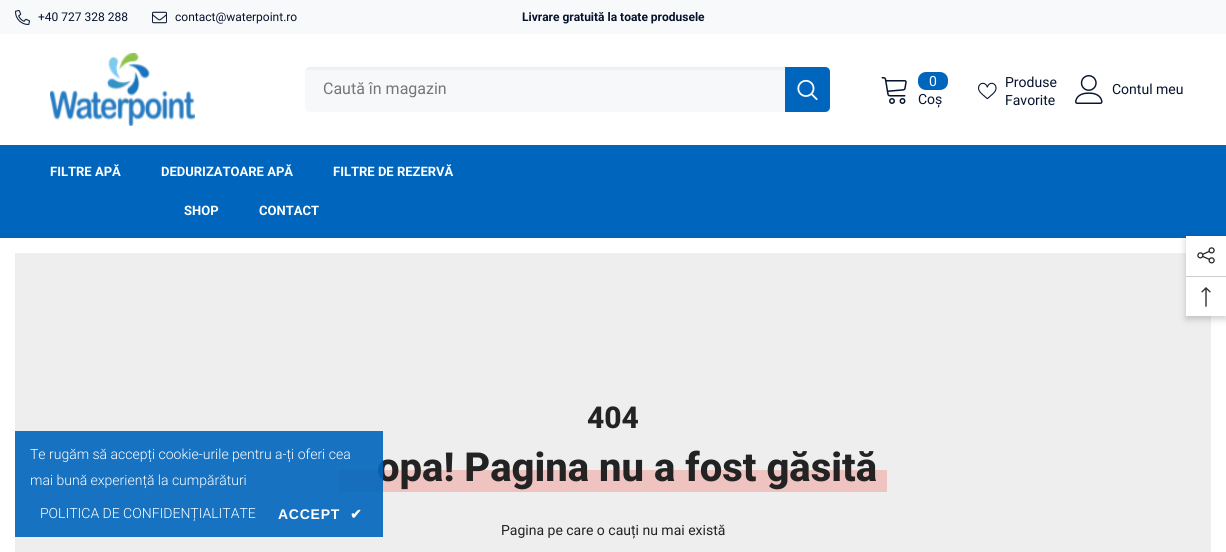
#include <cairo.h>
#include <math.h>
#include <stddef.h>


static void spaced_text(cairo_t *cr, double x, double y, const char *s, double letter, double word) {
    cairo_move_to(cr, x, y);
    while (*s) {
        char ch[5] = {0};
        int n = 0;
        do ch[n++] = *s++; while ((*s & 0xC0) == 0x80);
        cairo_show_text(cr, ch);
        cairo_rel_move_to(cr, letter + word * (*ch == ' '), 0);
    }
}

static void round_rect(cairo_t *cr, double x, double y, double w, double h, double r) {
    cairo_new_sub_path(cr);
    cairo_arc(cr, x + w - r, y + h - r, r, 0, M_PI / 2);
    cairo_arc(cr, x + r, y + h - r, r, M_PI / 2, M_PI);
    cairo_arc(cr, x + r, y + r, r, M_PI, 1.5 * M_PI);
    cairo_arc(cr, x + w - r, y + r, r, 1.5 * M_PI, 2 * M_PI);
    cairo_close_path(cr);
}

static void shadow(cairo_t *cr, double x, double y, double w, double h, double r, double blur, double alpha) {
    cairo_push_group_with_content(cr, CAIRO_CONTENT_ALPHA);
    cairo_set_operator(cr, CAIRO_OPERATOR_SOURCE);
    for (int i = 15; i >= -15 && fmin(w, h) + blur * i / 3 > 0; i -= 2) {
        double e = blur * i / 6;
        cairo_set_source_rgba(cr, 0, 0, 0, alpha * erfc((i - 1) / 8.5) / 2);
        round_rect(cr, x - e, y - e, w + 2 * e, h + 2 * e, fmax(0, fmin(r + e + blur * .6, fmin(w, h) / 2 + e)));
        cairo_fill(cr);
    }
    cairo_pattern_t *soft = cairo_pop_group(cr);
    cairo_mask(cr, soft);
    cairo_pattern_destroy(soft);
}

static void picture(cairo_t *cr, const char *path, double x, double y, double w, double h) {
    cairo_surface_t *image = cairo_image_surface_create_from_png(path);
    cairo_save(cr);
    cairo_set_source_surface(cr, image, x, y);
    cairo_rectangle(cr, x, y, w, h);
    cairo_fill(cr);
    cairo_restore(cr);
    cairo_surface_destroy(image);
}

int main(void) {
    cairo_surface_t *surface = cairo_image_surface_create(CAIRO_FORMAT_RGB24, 1226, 552);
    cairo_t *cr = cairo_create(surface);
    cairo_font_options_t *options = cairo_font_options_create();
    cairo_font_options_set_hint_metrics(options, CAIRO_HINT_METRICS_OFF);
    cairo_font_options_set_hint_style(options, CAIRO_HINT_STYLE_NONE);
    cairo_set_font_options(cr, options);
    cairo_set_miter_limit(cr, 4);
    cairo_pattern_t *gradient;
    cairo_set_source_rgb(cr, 1, 1, 1);
    cairo_paint(cr);
    cairo_set_source_rgb(cr, 0.969, 0.973, 0.98);
    cairo_rectangle(cr, 0, 0, 1226, 34);
    cairo_fill(cr);
    picture(cr, "img1.png", 15, 10, 15, 15);
    cairo_select_font_face(cr, "Roboto", CAIRO_FONT_SLANT_NORMAL, CAIRO_FONT_WEIGHT_NORMAL);
    cairo_set_font_size(cr, 12);
    cairo_set_source_rgb(cr, 0.024, 0.078, 0.18);
    cairo_move_to(cr, 38, 21);
    cairo_show_text(cr, "+40 727 328 288");
    picture(cr, "img2.png", 152, 11, 15, 13);
    cairo_move_to(cr, 175, 21);
    cairo_show_text(cr, "contact@waterpoint.ro");
    cairo_select_font_face(cr, "Roboto", CAIRO_FONT_SLANT_NORMAL, CAIRO_FONT_WEIGHT_BOLD);
    cairo_move_to(cr, 522, 21);
    cairo_show_text(cr, "Livrare gratuită la toate produsele");
    picture(cr, "img3.png", 50, 53, 145, 73);
    gradient = cairo_pattern_create_linear(568, 67, 568, 112);
    cairo_pattern_add_color_stop_rgba(gradient, 0, 0.914, 0.922, 0.933, 1);
    cairo_pattern_add_color_stop_rgba(gradient, 0.1, 0.969, 0.973, 0.98, 1);
    cairo_pattern_add_color_stop_rgba(gradient, 1, 0.969, 0.973, 0.98, 1);
    cairo_set_source(cr, gradient);
    cairo_pattern_destroy(gradient);
    round_rect(cr, 305, 67, 525, 45, 5);
    cairo_fill(cr);
    cairo_select_font_face(cr, "Roboto", CAIRO_FONT_SLANT_NORMAL, CAIRO_FONT_WEIGHT_NORMAL);
    cairo_set_font_size(cr, 16);
    cairo_set_source_rgb(cr, 0.463, 0.463, 0.463);
    cairo_move_to(cr, 323, 94);
    cairo_show_text(cr, "Caută în magazin");
    cairo_set_source_rgb(cr, 0, 0.396, 0.741);
    cairo_new_path(cr);
    cairo_move_to(cr, 785, 67);
    cairo_line_to(cr, 825, 67);
    cairo_curve_to(cr, 828, 67, 830, 69, 830, 72);
    cairo_line_to(cr, 830, 107);
    cairo_curve_to(cr, 830, 110, 828, 112, 825, 112);
    cairo_line_to(cr, 785, 112);
    cairo_close_path(cr);
    cairo_fill(cr);
    picture(cr, "img4.png", 797, 79, 21, 22);
    picture(cr, "img5.png", 881, 77, 26, 27);
    round_rect(cr, 918, 72, 30, 18, 8);
    cairo_fill(cr);
    cairo_set_font_size(cr, 14);
    cairo_set_source_rgb(cr, 1, 1, 1);
    cairo_move_to(cr, 929, 86);
    cairo_show_text(cr, "0");
    cairo_set_source_rgb(cr, 0.024, 0.078, 0.18);
    cairo_move_to(cr, 918, 104);
    cairo_show_text(cr, "Coș");
    picture(cr, "img6.png", 978, 82, 19, 18);
    cairo_move_to(cr, 1005, 87);
    cairo_show_text(cr, "Produse");
    cairo_move_to(cr, 1005, 105);
    cairo_show_text(cr, "Favorite");
    picture(cr, "img7.png", 1075, 75, 28, 29);
    cairo_move_to(cr, 1112, 94);
    cairo_show_text(cr, "Contul meu");
    cairo_set_source_rgb(cr, 0, 0.396, 0.741);
    cairo_rectangle(cr, 0, 145, 1226, 93);
    cairo_fill(cr);
    cairo_select_font_face(cr, "Roboto", CAIRO_FONT_SLANT_NORMAL, CAIRO_FONT_WEIGHT_BOLD);
    cairo_set_font_size(cr, 13);
    cairo_set_source_rgb(cr, 1, 1, 1);
    cairo_move_to(cr, 50, 176);
    cairo_show_text(cr, "FILTRE APĂ");
    cairo_move_to(cr, 161, 176);
    cairo_show_text(cr, "DEDURIZATOARE APĂ");
    cairo_move_to(cr, 333, 176);
    cairo_show_text(cr, "FILTRE DE REZERVĂ");
    cairo_move_to(cr, 184, 215);
    cairo_show_text(cr, "SHOP");
    cairo_move_to(cr, 259, 215);
    cairo_show_text(cr, "CONTACT");
    cairo_set_source_rgb(cr, 0.933, 0.933, 0.933);
    cairo_rectangle(cr, 15, 253, 1196, 299);
    cairo_fill(cr);
    cairo_select_font_face(cr, "Roboto ExtraBold", CAIRO_FONT_SLANT_NORMAL, CAIRO_FONT_WEIGHT_NORMAL);
    cairo_set_font_size(cr, 30);
    cairo_set_source_rgb(cr, 0.137, 0.137, 0.137);
    cairo_move_to(cr, 587, 428);
    cairo_show_text(cr, "404");
    cairo_set_source_rgb(cr, 0.937, 0.765, 0.753);
    cairo_rectangle(cr, 339, 470, 548, 22);
    cairo_fill(cr);
    cairo_set_font_size(cr, 40);
    cairo_set_source_rgb(cr, 0.137, 0.137, 0.137);
    cairo_move_to(cr, 377, 481);
    cairo_show_text(cr, "opa! Pagina nu a fost găsită");
    cairo_select_font_face(cr, "Roboto", CAIRO_FONT_SLANT_NORMAL, CAIRO_FONT_WEIGHT_NORMAL);
    cairo_set_font_size(cr, 14);
    cairo_move_to(cr, 501, 535);
    cairo_show_text(cr, "Pagina pe care o cauți nu mai există");
    cairo_set_source_rgb(cr, 0, 0, 0);
    shadow(cr, 1186, 239, 40, 80, 0, 3.5, 0.2);
    cairo_set_source_rgb(cr, 1, 1, 1);
    cairo_rectangle(cr, 1186, 236, 40, 80);
    cairo_fill(cr);
    picture(cr, "img8.png", 1197, 247, 18, 17);
    cairo_set_source_rgb(cr, 0.8, 0.8, 0.8);
    cairo_rectangle(cr, 1186, 276, 40, 1);
    cairo_fill(cr);
    picture(cr, "img9.png", 1201, 287, 10, 20);
    cairo_set_source_rgba(cr, 0, 0.396, 0.741, 0.9);
    cairo_rectangle(cr, 15, 431, 368, 106);
    cairo_fill(cr);
    cairo_select_font_face(cr, "Roboto Light", CAIRO_FONT_SLANT_NORMAL, CAIRO_FONT_WEIGHT_NORMAL);
    cairo_set_source_rgb(cr, 1, 1, 1);
    cairo_move_to(cr, 30, 459);
    cairo_show_text(cr, "Te rugăm să accepți cookie-urile pentru a-ți oferi cea");
    cairo_move_to(cr, 30, 485);
    cairo_show_text(cr, "mai bună experiență la cumpărături");
    cairo_move_to(cr, 40, 518);
    cairo_show_text(cr, "POLITICA DE CONFIDENȚIALITATE");
    cairo_select_font_face(cr, "Liberation Sans", CAIRO_FONT_SLANT_NORMAL, CAIRO_FONT_WEIGHT_BOLD);
    spaced_text(cr, 278, 519, "ACCEPT", 0.75, 0);
    cairo_select_font_face(cr, "DejaVu Sans", CAIRO_FONT_SLANT_NORMAL, CAIRO_FONT_WEIGHT_BOLD);
    spaced_text(cr, 350, 519, "✔", 0.75, 0);
    cairo_surface_write_to_png(surface, "page.png");
    cairo_font_options_destroy(options);
    cairo_destroy(cr);
    cairo_surface_destroy(surface);
    return 0;
}
